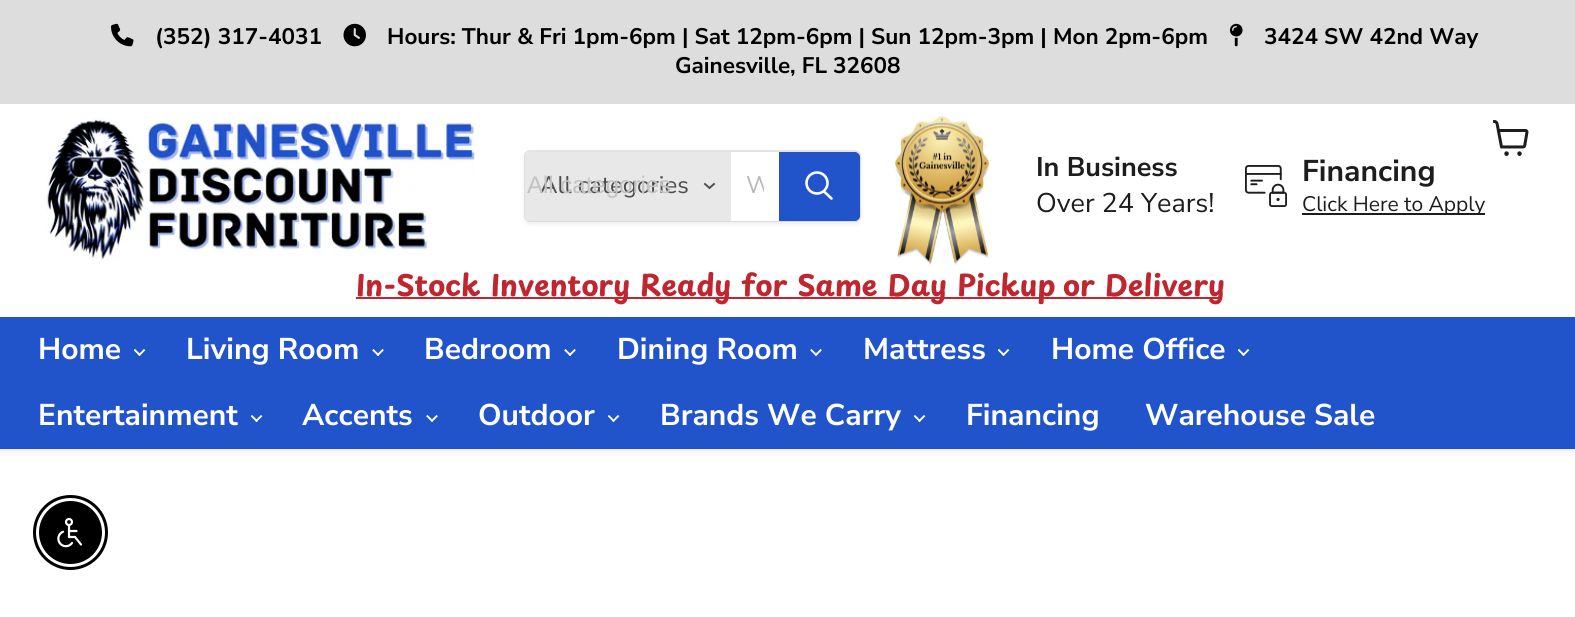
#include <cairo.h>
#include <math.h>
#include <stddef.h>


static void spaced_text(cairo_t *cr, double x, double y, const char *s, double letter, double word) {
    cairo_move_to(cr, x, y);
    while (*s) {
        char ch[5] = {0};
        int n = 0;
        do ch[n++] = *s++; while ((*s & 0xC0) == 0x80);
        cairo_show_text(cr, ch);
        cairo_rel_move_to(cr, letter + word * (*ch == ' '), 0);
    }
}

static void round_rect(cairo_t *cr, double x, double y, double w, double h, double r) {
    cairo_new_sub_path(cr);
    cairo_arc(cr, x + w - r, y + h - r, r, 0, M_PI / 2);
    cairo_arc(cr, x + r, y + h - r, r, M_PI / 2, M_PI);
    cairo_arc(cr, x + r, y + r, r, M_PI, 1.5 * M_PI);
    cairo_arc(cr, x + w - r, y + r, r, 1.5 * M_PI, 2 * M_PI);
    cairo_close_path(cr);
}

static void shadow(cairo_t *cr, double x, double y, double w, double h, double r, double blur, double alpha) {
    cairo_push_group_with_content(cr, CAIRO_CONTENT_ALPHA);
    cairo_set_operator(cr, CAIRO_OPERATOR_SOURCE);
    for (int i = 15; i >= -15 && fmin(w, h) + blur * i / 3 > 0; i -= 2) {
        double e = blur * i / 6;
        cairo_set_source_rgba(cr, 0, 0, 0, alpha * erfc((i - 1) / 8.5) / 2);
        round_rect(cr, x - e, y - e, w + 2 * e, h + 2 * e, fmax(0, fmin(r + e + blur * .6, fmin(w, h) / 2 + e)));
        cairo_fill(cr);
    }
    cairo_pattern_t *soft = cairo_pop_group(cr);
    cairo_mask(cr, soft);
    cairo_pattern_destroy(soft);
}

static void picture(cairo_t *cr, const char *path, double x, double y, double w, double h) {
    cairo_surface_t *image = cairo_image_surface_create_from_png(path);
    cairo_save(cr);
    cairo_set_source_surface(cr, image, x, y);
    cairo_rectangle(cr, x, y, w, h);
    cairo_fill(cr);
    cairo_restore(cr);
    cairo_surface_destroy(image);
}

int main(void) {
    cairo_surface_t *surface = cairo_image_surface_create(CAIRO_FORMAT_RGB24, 1575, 617);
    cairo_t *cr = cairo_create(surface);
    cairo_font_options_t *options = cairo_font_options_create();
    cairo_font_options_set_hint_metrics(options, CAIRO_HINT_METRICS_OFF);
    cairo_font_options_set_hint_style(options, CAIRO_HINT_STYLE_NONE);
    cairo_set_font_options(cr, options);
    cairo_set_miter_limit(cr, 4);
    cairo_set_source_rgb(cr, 1, 1, 1);
    cairo_paint(cr);
    cairo_set_source_rgb(cr, 0.502, 0.502, 0.502);
    shadow(cr, 0, 105, 1575, 345, 0, 3, 0.25);
    cairo_set_source_rgb(cr, 0.867, 0.867, 0.867);
    cairo_rectangle(cr, 0, 0, 1575, 104);
    cairo_fill(cr);
    picture(cr, "img1.png", 111, 23, 23, 24);
    cairo_select_font_face(cr, "Nunito Sans", CAIRO_FONT_SLANT_NORMAL, CAIRO_FONT_WEIGHT_BOLD);
    cairo_set_font_size(cr, 22.5);
    cairo_set_source_rgb(cr, 0, 0, 0);
    cairo_move_to(cr, 155, 44);
    cairo_show_text(cr, "(352) 317-4031");
    picture(cr, "img2.png", 343, 23, 23, 24);
    cairo_move_to(cr, 387, 44);
    cairo_show_text(cr, "Hours: Thur & Fri 1pm-6pm | Sat 12pm-6pm | Sun 12pm-3pm | Mon 2pm-6pm");
    picture(cr, "img3.png", 1229, 23, 14, 24);
    cairo_move_to(cr, 1264, 44);
    cairo_show_text(cr, "3424 SW 42nd Way");
    cairo_move_to(cr, 675, 73);
    cairo_show_text(cr, "Gainesville, FL 32608");
    cairo_set_source_rgb(cr, 1, 1, 1);
    cairo_rectangle(cr, 0, 104, 1575, 213);
    cairo_fill(cr);
    picture(cr, "img4.png", 1493, 120, 36, 36);
    picture(cr, "img5.png", 46, 117, 429, 144);
    cairo_set_source_rgb(cr, 0.502, 0.502, 0.502);
    shadow(cr, 524, 153, 337, 72, 6, 2, 0.11);
    round_rect(cr, 525, 151, 335, 70, 5);
    cairo_set_source_rgba(cr, 0.502, 0.502, 0.502, 0.2);
    cairo_stroke(cr);
    cairo_set_source_rgb(cr, 0.91, 0.91, 0.91);
    cairo_new_path(cr);
    cairo_move_to(cr, 530, 152);
    cairo_line_to(cr, 731, 152);
    cairo_line_to(cr, 731, 221);
    cairo_line_to(cr, 530, 221);
    cairo_curve_to(cr, 527, 221, 525, 219, 525, 216);
    cairo_line_to(cr, 525, 157);
    cairo_curve_to(cr, 525, 154, 527, 152, 530, 152);
    cairo_close_path(cr);
    cairo_fill(cr);
    cairo_select_font_face(cr, "Nunito Sans", CAIRO_FONT_SLANT_NORMAL, CAIRO_FONT_WEIGHT_NORMAL);
    cairo_set_font_size(cr, 24);
    cairo_set_source_rgb(cr, 0.302, 0.302, 0.302);
    cairo_move_to(cr, 540, 193);
    cairo_show_text(cr, "All categories");
    cairo_select_font_face(cr, "Liberation Sans", CAIRO_FONT_SLANT_NORMAL, CAIRO_FONT_WEIGHT_NORMAL);
    cairo_set_source_rgb(cr, 0.765, 0.765, 0.765);
    cairo_move_to(cr, 527, 193);
    cairo_show_text(cr, "All categories");
    cairo_new_path(cr);
    cairo_move_to(cr, 709.5, 188);
    cairo_line_to(cr, 714, 184);
    cairo_move_to(cr, 709.5, 188);
    cairo_line_to(cr, 705, 184);
    cairo_set_source_rgb(cr, 0.302, 0.302, 0.302);
    cairo_set_line_width(cr, 1.9);
    cairo_set_line_cap(cr, CAIRO_LINE_CAP_SQUARE);
    cairo_stroke(cr);
    cairo_set_source_rgb(cr, 1, 1, 1);
    cairo_rectangle(cr, 731, 152, 48, 69);
    cairo_fill(cr);
    cairo_save(cr);
    cairo_rectangle(cr, 746, 170, 18, 33);
    cairo_clip(cr);
    cairo_select_font_face(cr, "Nunito Sans", CAIRO_FONT_SLANT_NORMAL, CAIRO_FONT_WEIGHT_NORMAL);
    cairo_set_source_rgb(cr, 0.722, 0.722, 0.722);
    cairo_move_to(cr, 746, 193);
    cairo_show_text(cr, "W");
    cairo_restore(cr);
    cairo_set_source_rgb(cr, 0.129, 0.325, 0.796);
    cairo_new_path(cr);
    cairo_move_to(cr, 780, 153);
    cairo_line_to(cr, 855, 153);
    cairo_curve_to(cr, 857, 153, 859, 155, 859, 157);
    cairo_line_to(cr, 859, 216);
    cairo_curve_to(cr, 859, 218, 857, 220, 855, 220);
    cairo_line_to(cr, 780, 220);
    cairo_close_path(cr);
    cairo_fill_preserve(cr);
    cairo_set_line_width(cr, 2);
    cairo_set_line_cap(cr, CAIRO_LINE_CAP_BUTT);
    cairo_stroke(cr);
    cairo_new_path(cr);
    cairo_move_to(cr, 831.5, 198.5);
    cairo_line_to(cr, 824, 191.5);
    cairo_set_source_rgb(cr, 1, 1, 1);
    cairo_set_line_width(cr, 2.6);
    cairo_set_line_cap(cr, CAIRO_LINE_CAP_ROUND);
    cairo_stroke(cr);
    cairo_arc(cr, 817, 183, 10.5, 0, 2 * M_PI);
    cairo_set_line_cap(cr, CAIRO_LINE_CAP_BUTT);
    cairo_stroke(cr);
    picture(cr, "img6.png", 894, 115, 96, 151);
    cairo_select_font_face(cr, "Nunito Sans", CAIRO_FONT_SLANT_NORMAL, CAIRO_FONT_WEIGHT_BOLD);
    cairo_set_font_size(cr, 27);
    cairo_set_source_rgb(cr, 0.114, 0.114, 0.114);
    cairo_move_to(cr, 1036, 176);
    cairo_show_text(cr, "In Business");
    cairo_select_font_face(cr, "Nunito Sans", CAIRO_FONT_SLANT_NORMAL, CAIRO_FONT_WEIGHT_NORMAL);
    cairo_move_to(cr, 1036, 212);
    cairo_show_text(cr, "Over 24 Years!");
    picture(cr, "img7.png", 1245, 165, 42, 42);
    cairo_select_font_face(cr, "Nunito Sans", CAIRO_FONT_SLANT_NORMAL, CAIRO_FONT_WEIGHT_BOLD);
    cairo_set_font_size(cr, 30);
    cairo_move_to(cr, 1302, 181);
    cairo_show_text(cr, "Financing");
    cairo_rectangle(cr, 1302, 213, 183, 2);
    cairo_fill(cr);
    cairo_select_font_face(cr, "Nunito Sans", CAIRO_FONT_SLANT_NORMAL, CAIRO_FONT_WEIGHT_NORMAL);
    cairo_set_font_size(cr, 21);
    cairo_move_to(cr, 1302, 211);
    cairo_show_text(cr, "Click Here to Apply");
    cairo_set_source_rgb(cr, 0.749, 0.149, 0.184);
    cairo_rectangle(cr, 356, 297, 864, 2);
    cairo_fill(cr);
    cairo_select_font_face(cr, "Playpen Sans", CAIRO_FONT_SLANT_NORMAL, CAIRO_FONT_WEIGHT_BOLD);
    cairo_set_font_size(cr, 28.8);
    spaced_text(cr, 356, 296, "In-Stock Inventory Ready for Same Day Pickup", 0, 1);
    spaced_text(cr, 1063, 296, "or Delivery", 0, 1);
    cairo_set_source_rgb(cr, 0.129, 0.325, 0.796);
    cairo_rectangle(cr, 0, 317, 1575, 132);
    cairo_fill(cr);
    cairo_select_font_face(cr, "Nunito Sans", CAIRO_FONT_SLANT_NORMAL, CAIRO_FONT_WEIGHT_BOLD);
    cairo_set_font_size(cr, 30);
    cairo_set_source_rgb(cr, 1, 1, 1);
    cairo_move_to(cr, 38, 359);
    cairo_show_text(cr, "Home");
    picture(cr, "img8.png", 134, 349, 12, 7);
    cairo_move_to(cr, 186, 359);
    cairo_show_text(cr, "Living Room");
    picture(cr, "img9.png", 372, 349, 12, 7);
    cairo_move_to(cr, 424, 359);
    cairo_show_text(cr, "Bedroom");
    picture(cr, "img9.png", 564, 349, 12, 7);
    cairo_move_to(cr, 617, 359);
    cairo_show_text(cr, "Dining Room");
    picture(cr, "img9.png", 810, 349, 12, 7);
    cairo_move_to(cr, 863, 359);
    cairo_show_text(cr, "Mattress");
    picture(cr, "img8.png", 998, 349, 12, 7);
    cairo_move_to(cr, 1051, 359);
    cairo_show_text(cr, "Home Office");
    picture(cr, "img8.png", 1238, 349, 12, 7);
    cairo_move_to(cr, 38, 425);
    cairo_show_text(cr, "Entertainment");
    picture(cr, "img8.png", 251, 415, 12, 7);
    cairo_move_to(cr, 302, 425);
    cairo_show_text(cr, "Accents");
    picture(cr, "img9.png", 426, 415, 12, 7);
    cairo_move_to(cr, 478, 425);
    cairo_show_text(cr, "Outdoor");
    picture(cr, "img8.png", 608, 415, 12, 7);
    cairo_move_to(cr, 660, 425);
    cairo_show_text(cr, "Brands We Carry");
    picture(cr, "img8.png", 914, 415, 12, 7);
    cairo_move_to(cr, 966, 425);
    cairo_show_text(cr, "Financing");
    cairo_move_to(cr, 1145, 425);
    cairo_show_text(cr, "Warehouse Sale");
    cairo_new_path(cr);
    cairo_arc(cr, 70.5, 532.5, 36, 0, 2 * M_PI);
    cairo_set_source_rgb(cr, 0, 0, 0);
    cairo_set_line_width(cr, 3);
    cairo_stroke(cr);
    cairo_arc(cr, 70.5, 532.5, 30.5, 0, 2 * M_PI);
    cairo_fill_preserve(cr);
    cairo_set_line_width(cr, 2);
    cairo_stroke(cr);
    picture(cr, "img10.png", 57, 517, 26, 31);
    cairo_surface_write_to_png(surface, "page.png");
    cairo_font_options_destroy(options);
    cairo_destroy(cr);
    cairo_surface_destroy(surface);
    return 0;
}
